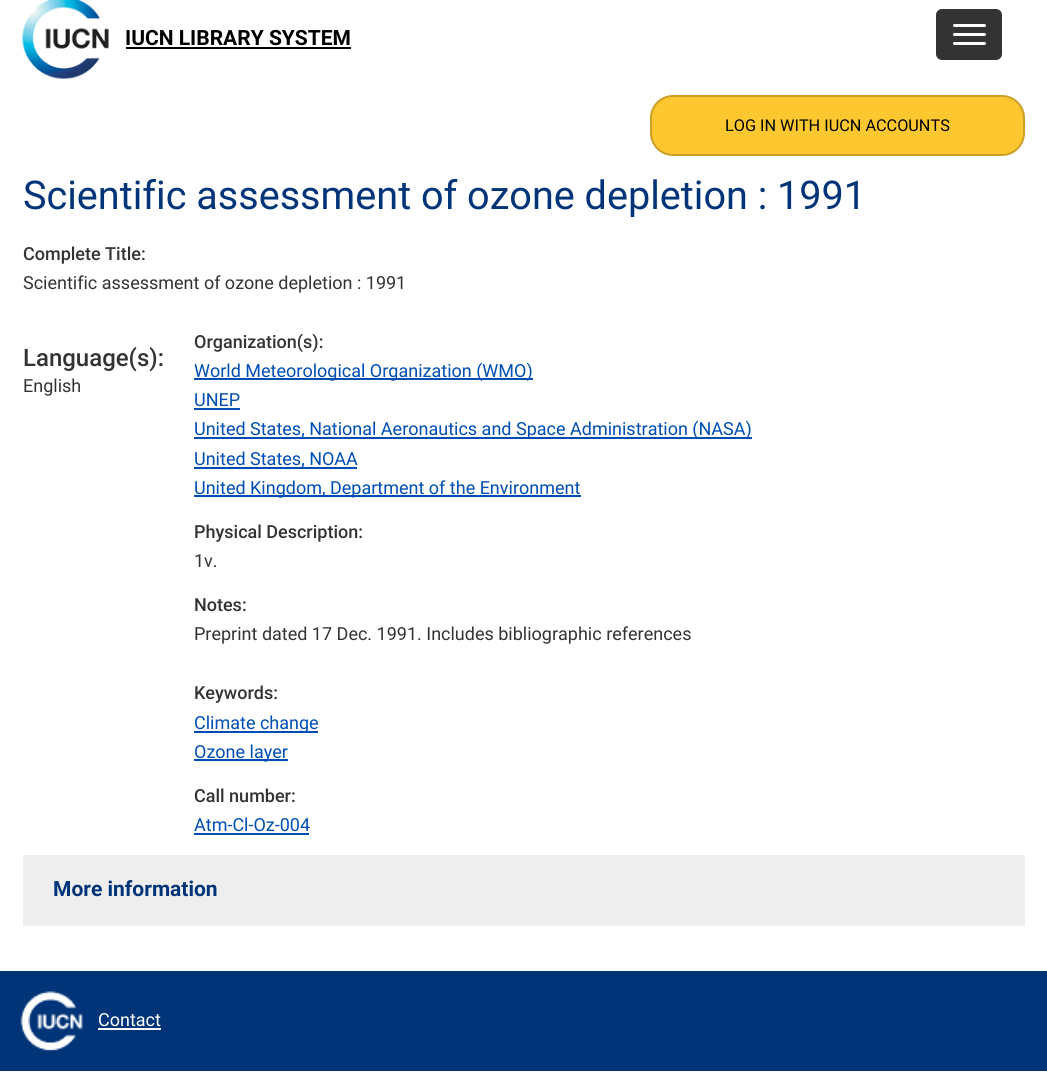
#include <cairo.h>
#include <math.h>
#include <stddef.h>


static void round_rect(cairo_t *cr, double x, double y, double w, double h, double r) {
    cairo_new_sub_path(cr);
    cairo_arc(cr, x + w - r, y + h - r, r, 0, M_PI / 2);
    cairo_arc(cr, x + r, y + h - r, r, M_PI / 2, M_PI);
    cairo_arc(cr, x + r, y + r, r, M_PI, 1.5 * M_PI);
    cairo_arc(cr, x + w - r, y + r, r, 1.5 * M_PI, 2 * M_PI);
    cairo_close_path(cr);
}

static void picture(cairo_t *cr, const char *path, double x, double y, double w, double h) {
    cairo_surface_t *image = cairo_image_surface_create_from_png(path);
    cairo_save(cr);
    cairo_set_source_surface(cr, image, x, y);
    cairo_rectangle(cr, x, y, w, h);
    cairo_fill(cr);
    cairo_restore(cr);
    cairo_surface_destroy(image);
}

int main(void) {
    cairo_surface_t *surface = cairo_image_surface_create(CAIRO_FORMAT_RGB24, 1047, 1072);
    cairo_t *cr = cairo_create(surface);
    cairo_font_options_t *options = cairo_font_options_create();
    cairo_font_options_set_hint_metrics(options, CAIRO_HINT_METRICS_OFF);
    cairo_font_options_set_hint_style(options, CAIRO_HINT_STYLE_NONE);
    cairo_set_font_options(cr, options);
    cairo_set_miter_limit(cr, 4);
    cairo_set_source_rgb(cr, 1, 1, 1);
    cairo_paint(cr);
    picture(cr, "img1.png", 22, 0, 87, 79);
    cairo_select_font_face(cr, "Roboto", CAIRO_FONT_SLANT_NORMAL, CAIRO_FONT_WEIGHT_BOLD);
    cairo_set_font_size(cr, 21);
    cairo_set_source_rgb(cr, 0, 0, 0);
    cairo_move_to(cr, 125, 45);
    cairo_show_text(cr, "IUCN LIBRARY SYSTEM");
    cairo_rectangle(cr, 126, 47, 225, 2);
    cairo_fill(cr);
    cairo_set_source_rgb(cr, 0.2, 0.2, 0.2);
    round_rect(cr, 936, 9, 66, 51, 6);
    cairo_fill(cr);
    cairo_set_source_rgb(cr, 1, 1, 1);
    round_rect(cr, 953, 24, 33, 3, 1.5);
    cairo_fill(cr);
    round_rect(cr, 953, 33, 33, 3, 1.5);
    cairo_fill(cr);
    round_rect(cr, 953, 42, 33, 3, 1.5);
    cairo_fill(cr);
    cairo_set_source_rgb(cr, 0.992, 0.784, 0.184);
    round_rect(cr, 651, 96, 373, 59, 22);
    cairo_fill_preserve(cr);
    cairo_set_source_rgb(cr, 0.8, 0.624, 0.149);
    cairo_stroke(cr);
    cairo_select_font_face(cr, "Roboto", CAIRO_FONT_SLANT_NORMAL, CAIRO_FONT_WEIGHT_NORMAL);
    cairo_set_font_size(cr, 16.25);
    cairo_set_source_rgb(cr, 0, 0, 0);
    cairo_move_to(cr, 725, 131);
    cairo_show_text(cr, "LOG IN WITH IUCN ACCOUNTS");
    cairo_set_font_size(cr, 39.6);
    cairo_set_source_rgb(cr, 0, 0.204, 0.471);
    cairo_move_to(cr, 23, 209);
    cairo_show_text(cr, "Scientific assessment of ozone depletion : 1991");
    cairo_select_font_face(cr, "Roboto Medium", CAIRO_FONT_SLANT_NORMAL, CAIRO_FONT_WEIGHT_NORMAL);
    cairo_set_font_size(cr, 18);
    cairo_set_source_rgb(cr, 0.2, 0.2, 0.2);
    cairo_move_to(cr, 23, 260);
    cairo_show_text(cr, "Complete Title:");
    cairo_select_font_face(cr, "Roboto", CAIRO_FONT_SLANT_NORMAL, CAIRO_FONT_WEIGHT_NORMAL);
    cairo_move_to(cr, 23, 289);
    cairo_show_text(cr, "Scientific assessment of ozone depletion : 1991");
    cairo_select_font_face(cr, "Roboto Medium", CAIRO_FONT_SLANT_NORMAL, CAIRO_FONT_WEIGHT_NORMAL);
    cairo_set_font_size(cr, 24);
    cairo_move_to(cr, 23, 366);
    cairo_show_text(cr, "Language(s):");
    cairo_select_font_face(cr, "Roboto", CAIRO_FONT_SLANT_NORMAL, CAIRO_FONT_WEIGHT_NORMAL);
    cairo_set_font_size(cr, 18);
    cairo_move_to(cr, 23, 392);
    cairo_show_text(cr, "English");
    cairo_select_font_face(cr, "Roboto Medium", CAIRO_FONT_SLANT_NORMAL, CAIRO_FONT_WEIGHT_NORMAL);
    cairo_move_to(cr, 194, 348);
    cairo_show_text(cr, "Organization(s):");
    cairo_set_source_rgb(cr, 0, 0.302, 0.702);
    cairo_rectangle(cr, 194, 378, 339, 2);
    cairo_fill(cr);
    cairo_select_font_face(cr, "Roboto", CAIRO_FONT_SLANT_NORMAL, CAIRO_FONT_WEIGHT_NORMAL);
    cairo_move_to(cr, 194, 377);
    cairo_show_text(cr, "World Meteorological Organization (WMO)");
    cairo_move_to(cr, 194, 406);
    cairo_show_text(cr, "UNEP");
    cairo_rectangle(cr, 194, 408, 46, 2);
    cairo_fill(cr);
    cairo_rectangle(cr, 194, 437, 558, 2);
    cairo_fill(cr);
    cairo_move_to(cr, 194, 435);
    cairo_show_text(cr, "United States, National Aeronautics and Space Administration (NASA)");
    cairo_rectangle(cr, 194, 467, 163, 2);
    cairo_fill(cr);
    cairo_move_to(cr, 194, 465);
    cairo_show_text(cr, "United States, NOAA");
    cairo_rectangle(cr, 194, 495, 387, 2);
    cairo_fill(cr);
    cairo_move_to(cr, 194, 494);
    cairo_show_text(cr, "United Kingdom, Department of the Environment");
    cairo_select_font_face(cr, "Roboto Medium", CAIRO_FONT_SLANT_NORMAL, CAIRO_FONT_WEIGHT_NORMAL);
    cairo_set_source_rgb(cr, 0.2, 0.2, 0.2);
    cairo_move_to(cr, 194, 538);
    cairo_show_text(cr, "Physical Description:");
    cairo_select_font_face(cr, "Roboto", CAIRO_FONT_SLANT_NORMAL, CAIRO_FONT_WEIGHT_NORMAL);
    cairo_move_to(cr, 194, 567);
    cairo_show_text(cr, "1v.");
    cairo_select_font_face(cr, "Roboto Medium", CAIRO_FONT_SLANT_NORMAL, CAIRO_FONT_WEIGHT_NORMAL);
    cairo_move_to(cr, 194, 611);
    cairo_show_text(cr, "Notes:");
    cairo_select_font_face(cr, "Roboto", CAIRO_FONT_SLANT_NORMAL, CAIRO_FONT_WEIGHT_NORMAL);
    cairo_move_to(cr, 194, 640);
    cairo_show_text(cr, "Preprint dated 17 Dec. 1991. Includes bibliographic references");
    cairo_select_font_face(cr, "Roboto Medium", CAIRO_FONT_SLANT_NORMAL, CAIRO_FONT_WEIGHT_NORMAL);
    cairo_move_to(cr, 194, 699);
    cairo_show_text(cr, "Keywords:");
    cairo_set_source_rgb(cr, 0, 0.302, 0.702);
    cairo_rectangle(cr, 194, 731, 124, 2);
    cairo_fill(cr);
    cairo_select_font_face(cr, "Roboto", CAIRO_FONT_SLANT_NORMAL, CAIRO_FONT_WEIGHT_NORMAL);
    cairo_move_to(cr, 194, 729);
    cairo_show_text(cr, "Climate change");
    cairo_rectangle(cr, 194, 759, 94, 2);
    cairo_fill(cr);
    cairo_move_to(cr, 194, 758);
    cairo_show_text(cr, "Ozone layer");
    cairo_select_font_face(cr, "Roboto Medium", CAIRO_FONT_SLANT_NORMAL, CAIRO_FONT_WEIGHT_NORMAL);
    cairo_set_source_rgb(cr, 0.2, 0.2, 0.2);
    cairo_move_to(cr, 194, 802);
    cairo_show_text(cr, "Call number:");
    cairo_select_font_face(cr, "Roboto", CAIRO_FONT_SLANT_NORMAL, CAIRO_FONT_WEIGHT_NORMAL);
    cairo_set_source_rgb(cr, 0, 0.302, 0.702);
    cairo_move_to(cr, 194, 831);
    cairo_show_text(cr, "Atm-Cl-Oz-004");
    cairo_rectangle(cr, 194, 833, 115, 2);
    cairo_fill(cr);
    cairo_set_source_rgb(cr, 0.933, 0.933, 0.933);
    cairo_rectangle(cr, 23, 855, 1002, 71);
    cairo_fill(cr);
    cairo_select_font_face(cr, "Roboto", CAIRO_FONT_SLANT_NORMAL, CAIRO_FONT_WEIGHT_BOLD);
    cairo_set_font_size(cr, 21);
    cairo_set_source_rgb(cr, 0, 0.204, 0.471);
    cairo_move_to(cr, 53, 896);
    cairo_show_text(cr, "More information");
    cairo_rectangle(cr, 0, 971, 1047, 100);
    cairo_fill(cr);
    picture(cr, "img2.png", 20, 991, 63, 60);
    cairo_select_font_face(cr, "Roboto", CAIRO_FONT_SLANT_NORMAL, CAIRO_FONT_WEIGHT_NORMAL);
    cairo_set_font_size(cr, 18);
    cairo_set_source_rgb(cr, 1, 1, 1);
    cairo_move_to(cr, 98, 1026);
    cairo_show_text(cr, "Contact");
    cairo_rectangle(cr, 98, 1028, 63, 2);
    cairo_fill(cr);
    cairo_surface_write_to_png(surface, "page.png");
    cairo_font_options_destroy(options);
    cairo_destroy(cr);
    cairo_surface_destroy(surface);
    return 0;
}
